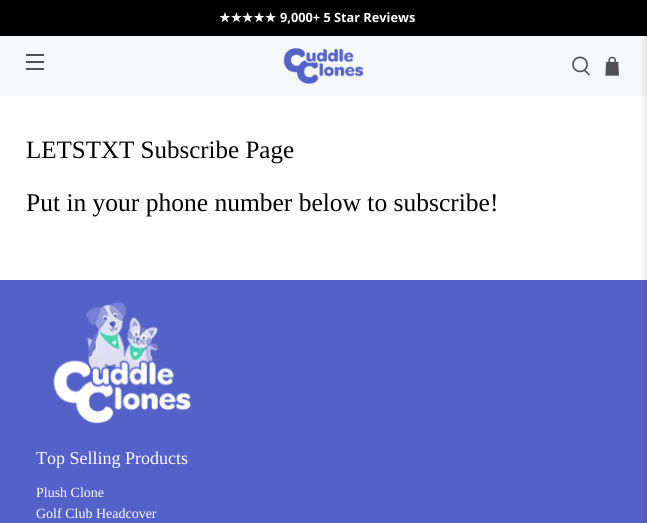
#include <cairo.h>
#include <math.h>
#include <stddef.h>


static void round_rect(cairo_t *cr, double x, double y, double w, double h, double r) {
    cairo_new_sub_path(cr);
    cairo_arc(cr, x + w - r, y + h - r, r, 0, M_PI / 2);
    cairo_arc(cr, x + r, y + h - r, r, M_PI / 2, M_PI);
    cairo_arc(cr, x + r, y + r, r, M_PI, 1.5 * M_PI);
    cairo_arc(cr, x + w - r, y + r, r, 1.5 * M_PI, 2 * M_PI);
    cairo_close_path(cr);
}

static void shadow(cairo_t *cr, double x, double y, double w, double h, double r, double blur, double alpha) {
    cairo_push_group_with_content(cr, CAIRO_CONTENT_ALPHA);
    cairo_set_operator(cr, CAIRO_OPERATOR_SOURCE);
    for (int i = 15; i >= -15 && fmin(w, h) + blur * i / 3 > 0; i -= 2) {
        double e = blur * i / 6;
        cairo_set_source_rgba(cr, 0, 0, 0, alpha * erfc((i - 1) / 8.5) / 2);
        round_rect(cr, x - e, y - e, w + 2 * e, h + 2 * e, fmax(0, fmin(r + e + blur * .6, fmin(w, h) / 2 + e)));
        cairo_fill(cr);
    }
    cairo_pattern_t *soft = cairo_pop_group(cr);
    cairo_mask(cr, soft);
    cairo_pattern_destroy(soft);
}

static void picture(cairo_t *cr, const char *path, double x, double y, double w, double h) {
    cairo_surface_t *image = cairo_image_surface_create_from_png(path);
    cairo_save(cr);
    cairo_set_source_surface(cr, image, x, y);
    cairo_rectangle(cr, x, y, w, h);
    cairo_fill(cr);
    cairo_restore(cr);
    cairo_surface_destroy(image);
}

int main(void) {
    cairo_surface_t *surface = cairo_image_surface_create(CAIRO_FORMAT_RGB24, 647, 523);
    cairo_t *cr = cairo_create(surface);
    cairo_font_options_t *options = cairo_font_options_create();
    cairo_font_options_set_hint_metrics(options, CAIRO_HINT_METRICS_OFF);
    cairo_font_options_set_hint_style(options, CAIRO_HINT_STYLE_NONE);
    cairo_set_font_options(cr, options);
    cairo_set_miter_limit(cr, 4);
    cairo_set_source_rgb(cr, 1, 1, 1);
    cairo_paint(cr);
    cairo_set_source_rgb(cr, 0.961, 0.973, 0.976);
    cairo_rectangle(cr, 0, 36, 647, 60);
    cairo_fill(cr);
    cairo_set_source_rgb(cr, 0.318, 0.318, 0.318);
    cairo_rectangle(cr, 26, 54, 18, 2);
    cairo_fill(cr);
    cairo_rectangle(cr, 26, 61, 18, 2);
    cairo_fill(cr);
    cairo_rectangle(cr, 26, 68, 18, 2);
    cairo_fill(cr);
    picture(cr, "img1.png", 283, 48, 81, 36);
    picture(cr, "img2.png", 572, 56, 18, 20);
    picture(cr, "img3.png", 605, 56, 14, 20);
    cairo_set_source_rgb(cr, 0.329, 0.38, 0.784);
    cairo_rectangle(cr, 0, 280, 647, 243);
    cairo_fill(cr);
    cairo_set_source_rgb(cr, 0.039, 0.039, 0.039);
    shadow(cr, 647, 8, 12, 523, 0, 4, 0.1);
    cairo_set_source_rgb(cr, 0, 0, 0);
    cairo_rectangle(cr, 0, 0, 647, 36);
    cairo_fill(cr);
    cairo_select_font_face(cr, "DejaVu Sans", CAIRO_FONT_SLANT_NORMAL, CAIRO_FONT_WEIGHT_BOLD);
    cairo_set_font_size(cr, 12.75);
    cairo_set_source_rgb(cr, 1, 1, 1);
    cairo_move_to(cr, 219, 22);
    cairo_show_text(cr, "★★★★★");
    cairo_select_font_face(cr, "Open Sans", CAIRO_FONT_SLANT_NORMAL, CAIRO_FONT_WEIGHT_BOLD);
    cairo_move_to(cr, 280, 22);
    cairo_show_text(cr, "9,000+ 5 Star Reviews");
    cairo_set_source_rgb(cr, 0.039, 0.039, 0.039);
    shadow(cr, 647, 8, 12, 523, 0, 4, 0.1);
    cairo_select_font_face(cr, "Liberation Serif", CAIRO_FONT_SLANT_NORMAL, CAIRO_FONT_WEIGHT_NORMAL);
    cairo_set_font_size(cr, 25);
    cairo_set_source_rgb(cr, 0, 0, 0);
    cairo_move_to(cr, 26, 158);
    cairo_show_text(cr, "LETSTXT Subscribe Page");
    cairo_set_font_size(cr, 25.5);
    cairo_move_to(cr, 26, 211);
    cairo_show_text(cr, "Put in your phone number below to subscribe!");
    picture(cr, "img4.png", 53, 302, 138, 122);
    cairo_set_font_size(cr, 18);
    cairo_set_source_rgb(cr, 1, 1, 1);
    cairo_move_to(cr, 36, 464);
    cairo_show_text(cr, "Top Selling Products");
    cairo_set_font_size(cr, 14);
    cairo_move_to(cr, 36, 497);
    cairo_show_text(cr, "Plush Clone");
    cairo_move_to(cr, 36, 518);
    cairo_show_text(cr, "Golf Club Headcover");
    cairo_surface_write_to_png(surface, "page.png");
    cairo_font_options_destroy(options);
    cairo_destroy(cr);
    cairo_surface_destroy(surface);
    return 0;
}
